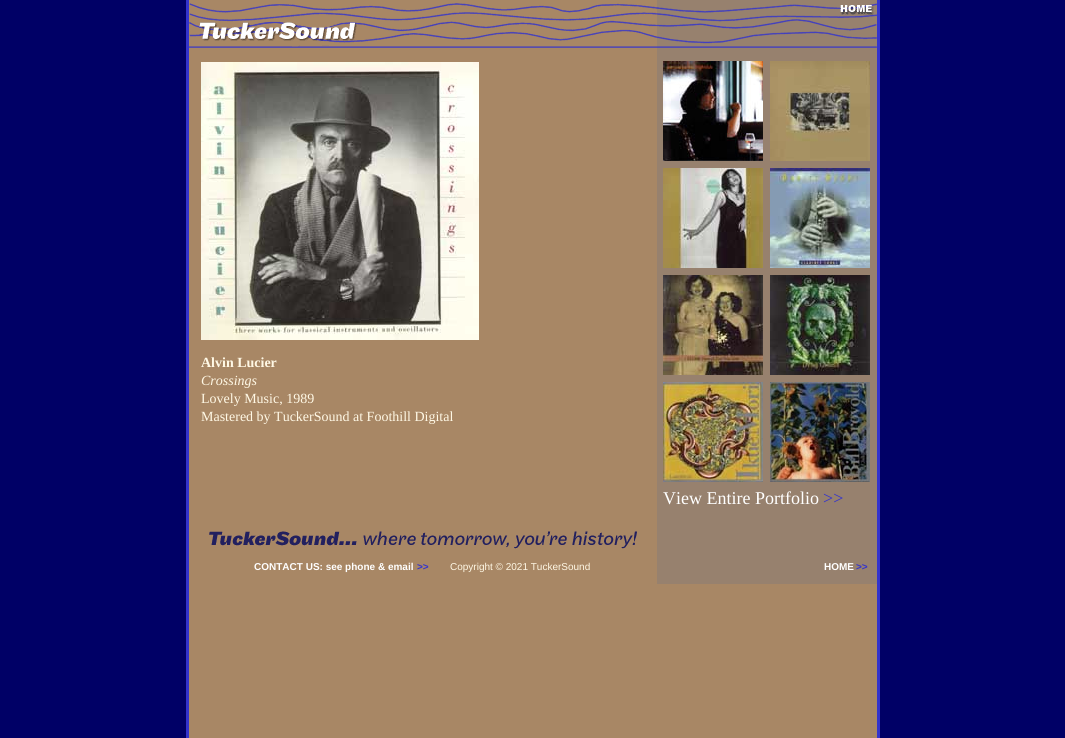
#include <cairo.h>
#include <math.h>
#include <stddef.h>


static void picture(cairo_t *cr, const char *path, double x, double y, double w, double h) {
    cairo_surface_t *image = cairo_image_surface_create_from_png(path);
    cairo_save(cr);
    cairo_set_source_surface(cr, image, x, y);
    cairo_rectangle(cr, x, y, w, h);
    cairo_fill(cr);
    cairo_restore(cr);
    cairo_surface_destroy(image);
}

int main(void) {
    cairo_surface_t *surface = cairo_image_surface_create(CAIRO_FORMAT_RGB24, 1065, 738);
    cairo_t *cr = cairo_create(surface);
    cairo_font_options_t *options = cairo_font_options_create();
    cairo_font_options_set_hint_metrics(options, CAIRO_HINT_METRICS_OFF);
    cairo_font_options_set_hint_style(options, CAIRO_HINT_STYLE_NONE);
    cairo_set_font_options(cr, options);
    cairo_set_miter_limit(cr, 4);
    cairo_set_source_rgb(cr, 0.659, 0.529, 0.396);
    cairo_paint(cr);
    cairo_set_source_rgb(cr, 0, 0, 0.4);
    cairo_rectangle(cr, 0, 0, 186, 738);
    cairo_fill(cr);
    cairo_set_source_rgb(cr, 0.2, 0.2, 0.8);
    cairo_rectangle(cr, 186, 0, 3, 738);
    cairo_fill(cr);
    picture(cr, "img1.png", 189, 3, 468, 45);
    cairo_set_source_rgb(cr, 0.592, 0.506, 0.431);
    cairo_rectangle(cr, 657, 0, 220, 584);
    cairo_fill(cr);
    picture(cr, "img2.png", 657, 3, 220, 45);
    picture(cr, "img3.png", 201, 62, 278, 278);
    cairo_select_font_face(cr, "Liberation Serif", CAIRO_FONT_SLANT_NORMAL, CAIRO_FONT_WEIGHT_BOLD);
    cairo_set_font_size(cr, 14);
    cairo_set_source_rgb(cr, 1, 0.969, 0.898);
    cairo_move_to(cr, 201, 367);
    cairo_show_text(cr, "Alvin Lucier");
    cairo_select_font_face(cr, "Liberation Serif", CAIRO_FONT_SLANT_ITALIC, CAIRO_FONT_WEIGHT_NORMAL);
    cairo_move_to(cr, 201, 385);
    cairo_show_text(cr, "Crossings");
    cairo_select_font_face(cr, "Liberation Serif", CAIRO_FONT_SLANT_NORMAL, CAIRO_FONT_WEIGHT_NORMAL);
    cairo_move_to(cr, 201, 403);
    cairo_show_text(cr, "Lovely Music, 1989");
    cairo_move_to(cr, 201, 421);
    cairo_show_text(cr, "Mastered by TuckerSound at Foothill Digital");
    picture(cr, "img4.png", 663, 61, 100, 100);
    picture(cr, "img5.png", 770, 61, 100, 100);
    picture(cr, "img6.png", 663, 168, 100, 100);
    picture(cr, "img7.png", 770, 168, 100, 100);
    picture(cr, "img8.png", 663, 275, 100, 100);
    picture(cr, "img9.png", 770, 275, 100, 100);
    picture(cr, "img10.png", 663, 382, 100, 100);
    picture(cr, "img11.png", 770, 382, 100, 100);
    cairo_set_font_size(cr, 18);
    cairo_set_source_rgb(cr, 1, 1, 1);
    cairo_move_to(cr, 663, 504);
    cairo_show_text(cr, "View Entire Portfolio");
    cairo_set_source_rgb(cr, 0.2, 0.2, 0.8);
    cairo_move_to(cr, 823, 504);
    cairo_show_text(cr, ">>");
    picture(cr, "img12.png", 209, 531, 428, 18);
    cairo_select_font_face(cr, "Liberation Sans", CAIRO_FONT_SLANT_NORMAL, CAIRO_FONT_WEIGHT_BOLD);
    cairo_set_font_size(cr, 10);
    cairo_set_source_rgb(cr, 1, 1, 1);
    cairo_move_to(cr, 254, 570);
    cairo_show_text(cr, "CONTACT US: see phone & email");
    cairo_set_source_rgb(cr, 0.2, 0.2, 0.8);
    cairo_move_to(cr, 417, 570);
    cairo_show_text(cr, ">>");
    cairo_select_font_face(cr, "Liberation Sans", CAIRO_FONT_SLANT_NORMAL, CAIRO_FONT_WEIGHT_NORMAL);
    cairo_set_source_rgb(cr, 1, 0.969, 0.898);
    cairo_move_to(cr, 450, 570);
    cairo_show_text(cr, "Copyright © 2021 TuckerSound");
    cairo_select_font_face(cr, "Liberation Sans", CAIRO_FONT_SLANT_NORMAL, CAIRO_FONT_WEIGHT_BOLD);
    cairo_set_source_rgb(cr, 1, 1, 1);
    cairo_move_to(cr, 824, 570);
    cairo_show_text(cr, "HOME");
    cairo_set_source_rgb(cr, 0.2, 0.2, 0.8);
    cairo_move_to(cr, 856, 570);
    cairo_show_text(cr, ">>");
    cairo_set_source_rgb(cr, 0, 0, 0.4);
    cairo_rectangle(cr, 880, 0, 185, 738);
    cairo_fill(cr);
    cairo_set_source_rgb(cr, 0.2, 0.2, 0.8);
    cairo_rectangle(cr, 877, 0, 3, 738);
    cairo_fill(cr);
    cairo_surface_write_to_png(surface, "page.png");
    cairo_font_options_destroy(options);
    cairo_destroy(cr);
    cairo_surface_destroy(surface);
    return 0;
}
